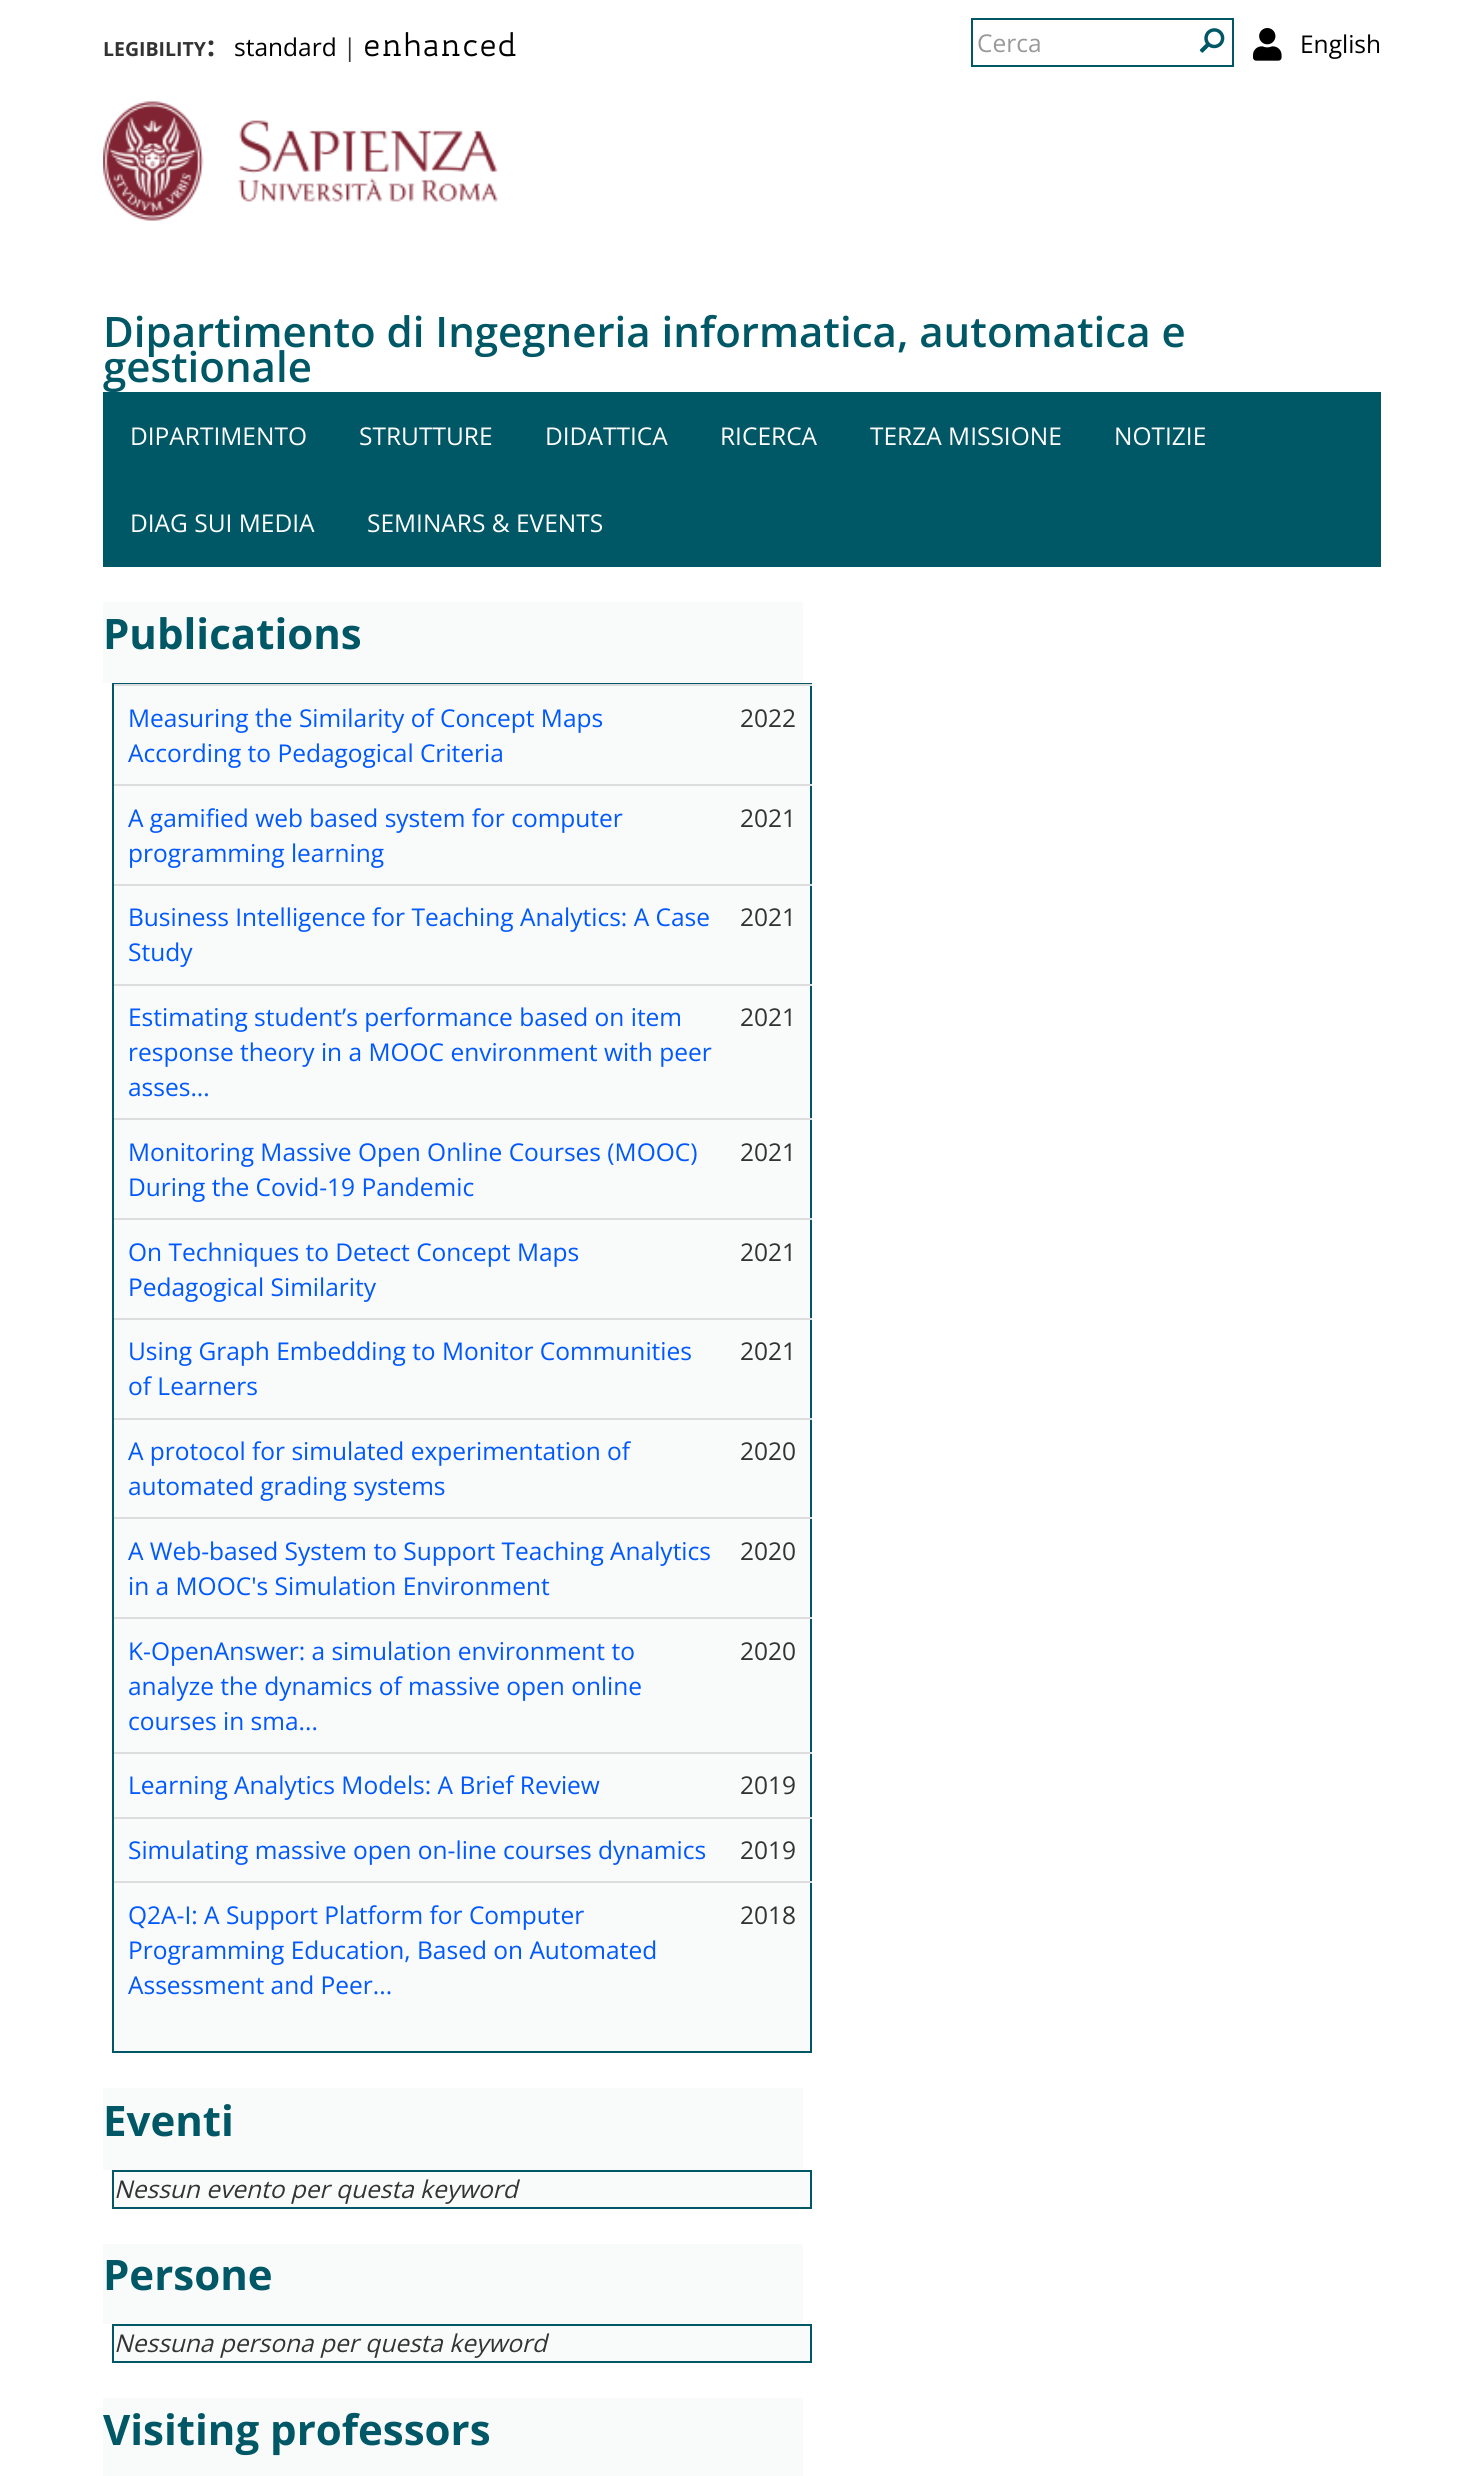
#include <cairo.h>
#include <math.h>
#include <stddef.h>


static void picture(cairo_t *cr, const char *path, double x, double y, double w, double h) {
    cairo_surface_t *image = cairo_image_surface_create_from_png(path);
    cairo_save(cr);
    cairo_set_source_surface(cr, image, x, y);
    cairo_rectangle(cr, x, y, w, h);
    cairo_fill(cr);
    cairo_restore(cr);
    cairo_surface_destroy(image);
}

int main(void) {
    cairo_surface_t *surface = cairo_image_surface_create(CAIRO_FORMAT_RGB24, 1483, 2476);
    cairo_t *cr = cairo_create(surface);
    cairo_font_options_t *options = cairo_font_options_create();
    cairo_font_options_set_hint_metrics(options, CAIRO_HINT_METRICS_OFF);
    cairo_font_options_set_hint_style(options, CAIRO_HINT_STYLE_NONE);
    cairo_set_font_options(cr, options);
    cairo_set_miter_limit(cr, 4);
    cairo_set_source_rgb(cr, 1, 1, 1);
    cairo_paint(cr);
    cairo_select_font_face(cr, "Open Sans", CAIRO_FONT_SLANT_NORMAL, CAIRO_FONT_WEIGHT_BOLD);
    cairo_set_font_size(cr, 19.5);
    cairo_set_source_rgb(cr, 0.2, 0.2, 0.2);
    cairo_move_to(cr, 103, 56);
    cairo_show_text(cr, "LEGIBILITY");
    cairo_set_font_size(cr, 28);
    cairo_move_to(cr, 207, 56);
    cairo_show_text(cr, ":");
    cairo_select_font_face(cr, "Open Sans", CAIRO_FONT_SLANT_NORMAL, CAIRO_FONT_WEIGHT_NORMAL);
    cairo_set_font_size(cr, 24.5);
    cairo_set_source_rgb(cr, 0, 0, 0);
    cairo_move_to(cr, 234, 56);
    cairo_show_text(cr, "standard");
    cairo_set_source_rgb(cr, 0.2, 0.2, 0.2);
    cairo_move_to(cr, 343, 56);
    cairo_show_text(cr, "|");
    cairo_select_font_face(cr, "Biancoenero", CAIRO_FONT_SLANT_NORMAL, CAIRO_FONT_WEIGHT_NORMAL);
    cairo_set_font_size(cr, 32);
    cairo_set_source_rgb(cr, 0, 0, 0);
    cairo_move_to(cr, 363, 56);
    cairo_show_text(cr, "enhanced");
    cairo_set_source_rgb(cr, 0, 0.345, 0.4);
    cairo_rectangle(cr, 971, 18, 263, 2);
    cairo_fill(cr);
    cairo_rectangle(cr, 971, 65, 221, 2);
    cairo_fill(cr);
    cairo_rectangle(cr, 971, 18, 2, 49);
    cairo_fill(cr);
    cairo_select_font_face(cr, "Open Sans", CAIRO_FONT_SLANT_NORMAL, CAIRO_FONT_WEIGHT_NORMAL);
    cairo_set_font_size(cr, 24.5);
    cairo_set_source_rgb(cr, 0.6, 0.6, 0.6);
    cairo_move_to(cr, 977, 52);
    cairo_show_text(cr, "Cerca");
    cairo_set_source_rgb(cr, 0, 0.345, 0.4);
    cairo_rectangle(cr, 1232, 18, 2, 49);
    cairo_fill(cr);
    cairo_rectangle(cr, 1190, 65, 44, 2);
    cairo_fill(cr);
    picture(cr, "img1.png", 1199, 28, 26, 25);
    picture(cr, "img2.png", 1253, 28, 29, 33);
    cairo_set_source_rgb(cr, 0, 0, 0);
    cairo_move_to(cr, 1300, 53);
    cairo_show_text(cr, "English");
    picture(cr, "img3.png", 103, 101, 395, 120);
    cairo_select_font_face(cr, "Open Sans SemiBold", CAIRO_FONT_SLANT_NORMAL, CAIRO_FONT_WEIGHT_NORMAL);
    cairo_set_font_size(cr, 42);
    cairo_set_source_rgb(cr, 0, 0.345, 0.4);
    cairo_move_to(cr, 103, 347);
    cairo_show_text(cr, "Dipartimento di Ingegneria informatica, automatica e");
    cairo_move_to(cr, 103, 382);
    cairo_show_text(cr, "gestionale");
    cairo_rectangle(cr, 103, 392, 1278, 175);
    cairo_fill(cr);
    cairo_select_font_face(cr, "Open Sans", CAIRO_FONT_SLANT_NORMAL, CAIRO_FONT_WEIGHT_NORMAL);
    cairo_set_font_size(cr, 24.5);
    cairo_set_source_rgb(cr, 1, 1, 1);
    cairo_move_to(cr, 130, 445);
    cairo_show_text(cr, "DIPARTIMENTO");
    cairo_move_to(cr, 359, 445);
    cairo_show_text(cr, "STRUTTURE");
    cairo_move_to(cr, 545, 445);
    cairo_show_text(cr, "DIDATTICA");
    cairo_move_to(cr, 720, 445);
    cairo_show_text(cr, "RICERCA");
    cairo_move_to(cr, 870, 445);
    cairo_show_text(cr, "TERZA MISSIONE");
    cairo_move_to(cr, 1114, 445);
    cairo_show_text(cr, "NOTIZIE");
    cairo_move_to(cr, 130, 532);
    cairo_show_text(cr, "DIAG SUI MEDIA");
    cairo_move_to(cr, 367, 532);
    cairo_show_text(cr, "SEMINARS & EVENTS");
    cairo_set_source_rgb(cr, 0.976, 0.98, 0.98);
    cairo_rectangle(cr, 103, 602, 700, 81);
    cairo_fill(cr);
    cairo_select_font_face(cr, "Open Sans", CAIRO_FONT_SLANT_NORMAL, CAIRO_FONT_WEIGHT_BOLD);
    cairo_set_font_size(cr, 42);
    cairo_set_source_rgb(cr, 0, 0.345, 0.4);
    cairo_move_to(cr, 103, 649);
    cairo_show_text(cr, "Publications");
    cairo_set_source_rgb(cr, 0.976, 0.98, 0.98);
    cairo_rectangle(cr, 114, 686, 696, 1365);
    cairo_fill(cr);
    cairo_rectangle(cr, 113, 684, 698, 1368);
    cairo_set_source_rgb(cr, 0, 0.345, 0.4);
    cairo_stroke(cr);
    cairo_select_font_face(cr, "Open Sans", CAIRO_FONT_SLANT_NORMAL, CAIRO_FONT_WEIGHT_NORMAL);
    cairo_set_font_size(cr, 24.5);
    cairo_set_source_rgb(cr, 0, 0.345, 1);
    cairo_move_to(cr, 128, 727);
    cairo_show_text(cr, "Measuring the Similarity of Concept Maps");
    cairo_move_to(cr, 128, 762);
    cairo_show_text(cr, "According to Pedagogical Criteria");
    cairo_set_source_rgb(cr, 0.867, 0.867, 0.867);
    cairo_rectangle(cr, 114, 684, 698, 2);
    cairo_fill(cr);
    cairo_set_source_rgb(cr, 0.2, 0.2, 0.2);
    cairo_move_to(cr, 740, 727);
    cairo_show_text(cr, "2022");
    cairo_set_source_rgb(cr, 0, 0.345, 1);
    cairo_move_to(cr, 128, 827);
    cairo_show_text(cr, "A gamified web based system for computer");
    cairo_move_to(cr, 128, 862);
    cairo_show_text(cr, "programming learning");
    cairo_set_source_rgb(cr, 0.867, 0.867, 0.867);
    cairo_rectangle(cr, 114, 784, 698, 2);
    cairo_fill(cr);
    cairo_set_source_rgb(cr, 0.2, 0.2, 0.2);
    cairo_move_to(cr, 740, 827);
    cairo_show_text(cr, "2021");
    cairo_set_source_rgb(cr, 0, 0.345, 1);
    cairo_move_to(cr, 128, 926);
    cairo_show_text(cr, "Business Intelligence for Teaching Analytics: A Case");
    cairo_move_to(cr, 128, 961);
    cairo_show_text(cr, "Study");
    cairo_set_source_rgb(cr, 0.867, 0.867, 0.867);
    cairo_rectangle(cr, 114, 884, 698, 2);
    cairo_fill(cr);
    cairo_set_source_rgb(cr, 0.2, 0.2, 0.2);
    cairo_move_to(cr, 740, 926);
    cairo_show_text(cr, "2021");
    cairo_set_source_rgb(cr, 0, 0.345, 1);
    cairo_move_to(cr, 128, 1026);
    cairo_show_text(cr, "Estimating student’s performance based on item");
    cairo_move_to(cr, 128, 1061);
    cairo_show_text(cr, "response theory in a MOOC environment with peer");
    cairo_move_to(cr, 128, 1096);
    cairo_show_text(cr, "asses...");
    cairo_set_source_rgb(cr, 0.867, 0.867, 0.867);
    cairo_rectangle(cr, 114, 984, 698, 2);
    cairo_fill(cr);
    cairo_set_source_rgb(cr, 0.2, 0.2, 0.2);
    cairo_move_to(cr, 740, 1026);
    cairo_show_text(cr, "2021");
    cairo_set_source_rgb(cr, 0, 0.345, 1);
    cairo_move_to(cr, 128, 1161);
    cairo_show_text(cr, "Monitoring Massive Open Online Courses (MOOC)");
    cairo_move_to(cr, 128, 1196);
    cairo_show_text(cr, "During the Covid-19 Pandemic");
    cairo_set_source_rgb(cr, 0.867, 0.867, 0.867);
    cairo_rectangle(cr, 114, 1118, 698, 2);
    cairo_fill(cr);
    cairo_set_source_rgb(cr, 0.2, 0.2, 0.2);
    cairo_move_to(cr, 740, 1161);
    cairo_show_text(cr, "2021");
    cairo_set_source_rgb(cr, 0, 0.345, 1);
    cairo_move_to(cr, 128, 1261);
    cairo_show_text(cr, "On Techniques to Detect Concept Maps");
    cairo_move_to(cr, 128, 1296);
    cairo_show_text(cr, "Pedagogical Similarity");
    cairo_set_source_rgb(cr, 0.867, 0.867, 0.867);
    cairo_rectangle(cr, 114, 1218, 698, 2);
    cairo_fill(cr);
    cairo_set_source_rgb(cr, 0.2, 0.2, 0.2);
    cairo_move_to(cr, 740, 1261);
    cairo_show_text(cr, "2021");
    cairo_set_source_rgb(cr, 0, 0.345, 1);
    cairo_move_to(cr, 128, 1360);
    cairo_show_text(cr, "Using Graph Embedding to Monitor Communities");
    cairo_move_to(cr, 128, 1395);
    cairo_show_text(cr, "of Learners");
    cairo_set_source_rgb(cr, 0.867, 0.867, 0.867);
    cairo_rectangle(cr, 114, 1318, 698, 2);
    cairo_fill(cr);
    cairo_set_source_rgb(cr, 0.2, 0.2, 0.2);
    cairo_move_to(cr, 740, 1360);
    cairo_show_text(cr, "2021");
    cairo_set_source_rgb(cr, 0, 0.345, 1);
    cairo_move_to(cr, 128, 1460);
    cairo_show_text(cr, "A protocol for simulated experimentation of");
    cairo_move_to(cr, 128, 1495);
    cairo_show_text(cr, "automated grading systems");
    cairo_set_source_rgb(cr, 0.867, 0.867, 0.867);
    cairo_rectangle(cr, 114, 1418, 698, 2);
    cairo_fill(cr);
    cairo_set_source_rgb(cr, 0.2, 0.2, 0.2);
    cairo_move_to(cr, 740, 1460);
    cairo_show_text(cr, "2020");
    cairo_set_source_rgb(cr, 0, 0.345, 1);
    cairo_move_to(cr, 128, 1560);
    cairo_show_text(cr, "A Web-based System to Support Teaching Analytics");
    cairo_move_to(cr, 128, 1595);
    cairo_show_text(cr, "in a MOOC's Simulation Environment");
    cairo_set_source_rgb(cr, 0.867, 0.867, 0.867);
    cairo_rectangle(cr, 114, 1517, 698, 2);
    cairo_fill(cr);
    cairo_set_source_rgb(cr, 0.2, 0.2, 0.2);
    cairo_move_to(cr, 740, 1560);
    cairo_show_text(cr, "2020");
    cairo_set_source_rgb(cr, 0, 0.345, 1);
    cairo_move_to(cr, 128, 1660);
    cairo_show_text(cr, "K-OpenAnswer: a simulation environment to");
    cairo_move_to(cr, 128, 1695);
    cairo_show_text(cr, "analyze the dynamics of massive open online");
    cairo_move_to(cr, 128, 1730);
    cairo_show_text(cr, "courses in sma...");
    cairo_set_source_rgb(cr, 0.867, 0.867, 0.867);
    cairo_rectangle(cr, 114, 1617, 698, 2);
    cairo_fill(cr);
    cairo_set_source_rgb(cr, 0.2, 0.2, 0.2);
    cairo_move_to(cr, 740, 1660);
    cairo_show_text(cr, "2020");
    cairo_set_source_rgb(cr, 0, 0.345, 1);
    cairo_move_to(cr, 128, 1794);
    cairo_show_text(cr, "Learning Analytics Models: A Brief Review");
    cairo_set_source_rgb(cr, 0.867, 0.867, 0.867);
    cairo_rectangle(cr, 114, 1752, 698, 2);
    cairo_fill(cr);
    cairo_set_source_rgb(cr, 0.2, 0.2, 0.2);
    cairo_move_to(cr, 740, 1794);
    cairo_show_text(cr, "2019");
    cairo_set_source_rgb(cr, 0, 0.345, 1);
    cairo_move_to(cr, 128, 1859);
    cairo_show_text(cr, "Simulating massive open on-line courses dynamics");
    cairo_set_source_rgb(cr, 0.867, 0.867, 0.867);
    cairo_rectangle(cr, 114, 1817, 698, 2);
    cairo_fill(cr);
    cairo_set_source_rgb(cr, 0.2, 0.2, 0.2);
    cairo_move_to(cr, 740, 1859);
    cairo_show_text(cr, "2019");
    cairo_set_source_rgb(cr, 0, 0.345, 1);
    cairo_move_to(cr, 128, 1924);
    cairo_show_text(cr, "Q2A-I: A Support Platform for Computer");
    cairo_move_to(cr, 128, 1959);
    cairo_show_text(cr, "Programming Education, Based on Automated");
    cairo_move_to(cr, 128, 1994);
    cairo_show_text(cr, "Assessment and Peer...");
    cairo_set_source_rgb(cr, 0.867, 0.867, 0.867);
    cairo_rectangle(cr, 114, 1881, 698, 2);
    cairo_fill(cr);
    cairo_set_source_rgb(cr, 0.2, 0.2, 0.2);
    cairo_move_to(cr, 740, 1924);
    cairo_show_text(cr, "2018");
    cairo_set_source_rgb(cr, 0.976, 0.98, 0.98);
    cairo_rectangle(cr, 103, 2088, 700, 82);
    cairo_fill(cr);
    cairo_select_font_face(cr, "Open Sans", CAIRO_FONT_SLANT_NORMAL, CAIRO_FONT_WEIGHT_BOLD);
    cairo_set_font_size(cr, 42);
    cairo_set_source_rgb(cr, 0, 0.345, 0.4);
    cairo_move_to(cr, 103, 2136);
    cairo_show_text(cr, "Eventi");
    cairo_set_source_rgb(cr, 0.976, 0.98, 0.98);
    cairo_rectangle(cr, 113, 2171, 698, 37);
    cairo_fill_preserve(cr);
    cairo_set_source_rgb(cr, 0, 0.345, 0.4);
    cairo_stroke(cr);
    cairo_select_font_face(cr, "Open Sans", CAIRO_FONT_SLANT_ITALIC, CAIRO_FONT_WEIGHT_NORMAL);
    cairo_set_font_size(cr, 24.5);
    cairo_set_source_rgb(cr, 0.2, 0.2, 0.2);
    cairo_move_to(cr, 114, 2198);
    cairo_show_text(cr, "Nessun evento per questa keyword");
    cairo_set_source_rgb(cr, 0.976, 0.98, 0.98);
    cairo_rectangle(cr, 103, 2244, 700, 80);
    cairo_fill(cr);
    cairo_select_font_face(cr, "Open Sans", CAIRO_FONT_SLANT_NORMAL, CAIRO_FONT_WEIGHT_BOLD);
    cairo_set_font_size(cr, 42);
    cairo_set_source_rgb(cr, 0, 0.345, 0.4);
    cairo_move_to(cr, 103, 2290);
    cairo_show_text(cr, "Persone");
    cairo_set_source_rgb(cr, 0.976, 0.98, 0.98);
    cairo_rectangle(cr, 113, 2325, 698, 37);
    cairo_fill_preserve(cr);
    cairo_set_source_rgb(cr, 0, 0.345, 0.4);
    cairo_stroke(cr);
    cairo_select_font_face(cr, "Open Sans", CAIRO_FONT_SLANT_ITALIC, CAIRO_FONT_WEIGHT_NORMAL);
    cairo_set_font_size(cr, 24.5);
    cairo_set_source_rgb(cr, 0.2, 0.2, 0.2);
    cairo_move_to(cr, 114, 2352);
    cairo_show_text(cr, "Nessuna persona per questa keyword");
    cairo_set_source_rgb(cr, 0.976, 0.98, 0.98);
    cairo_rectangle(cr, 103, 2398, 700, 78);
    cairo_fill(cr);
    cairo_select_font_face(cr, "Open Sans", CAIRO_FONT_SLANT_NORMAL, CAIRO_FONT_WEIGHT_BOLD);
    cairo_set_font_size(cr, 42);
    cairo_set_source_rgb(cr, 0, 0.345, 0.4);
    cairo_move_to(cr, 103, 2445);
    cairo_show_text(cr, "Visiting professors");
    cairo_surface_write_to_png(surface, "page.png");
    cairo_font_options_destroy(options);
    cairo_destroy(cr);
    cairo_surface_destroy(surface);
    return 0;
}
